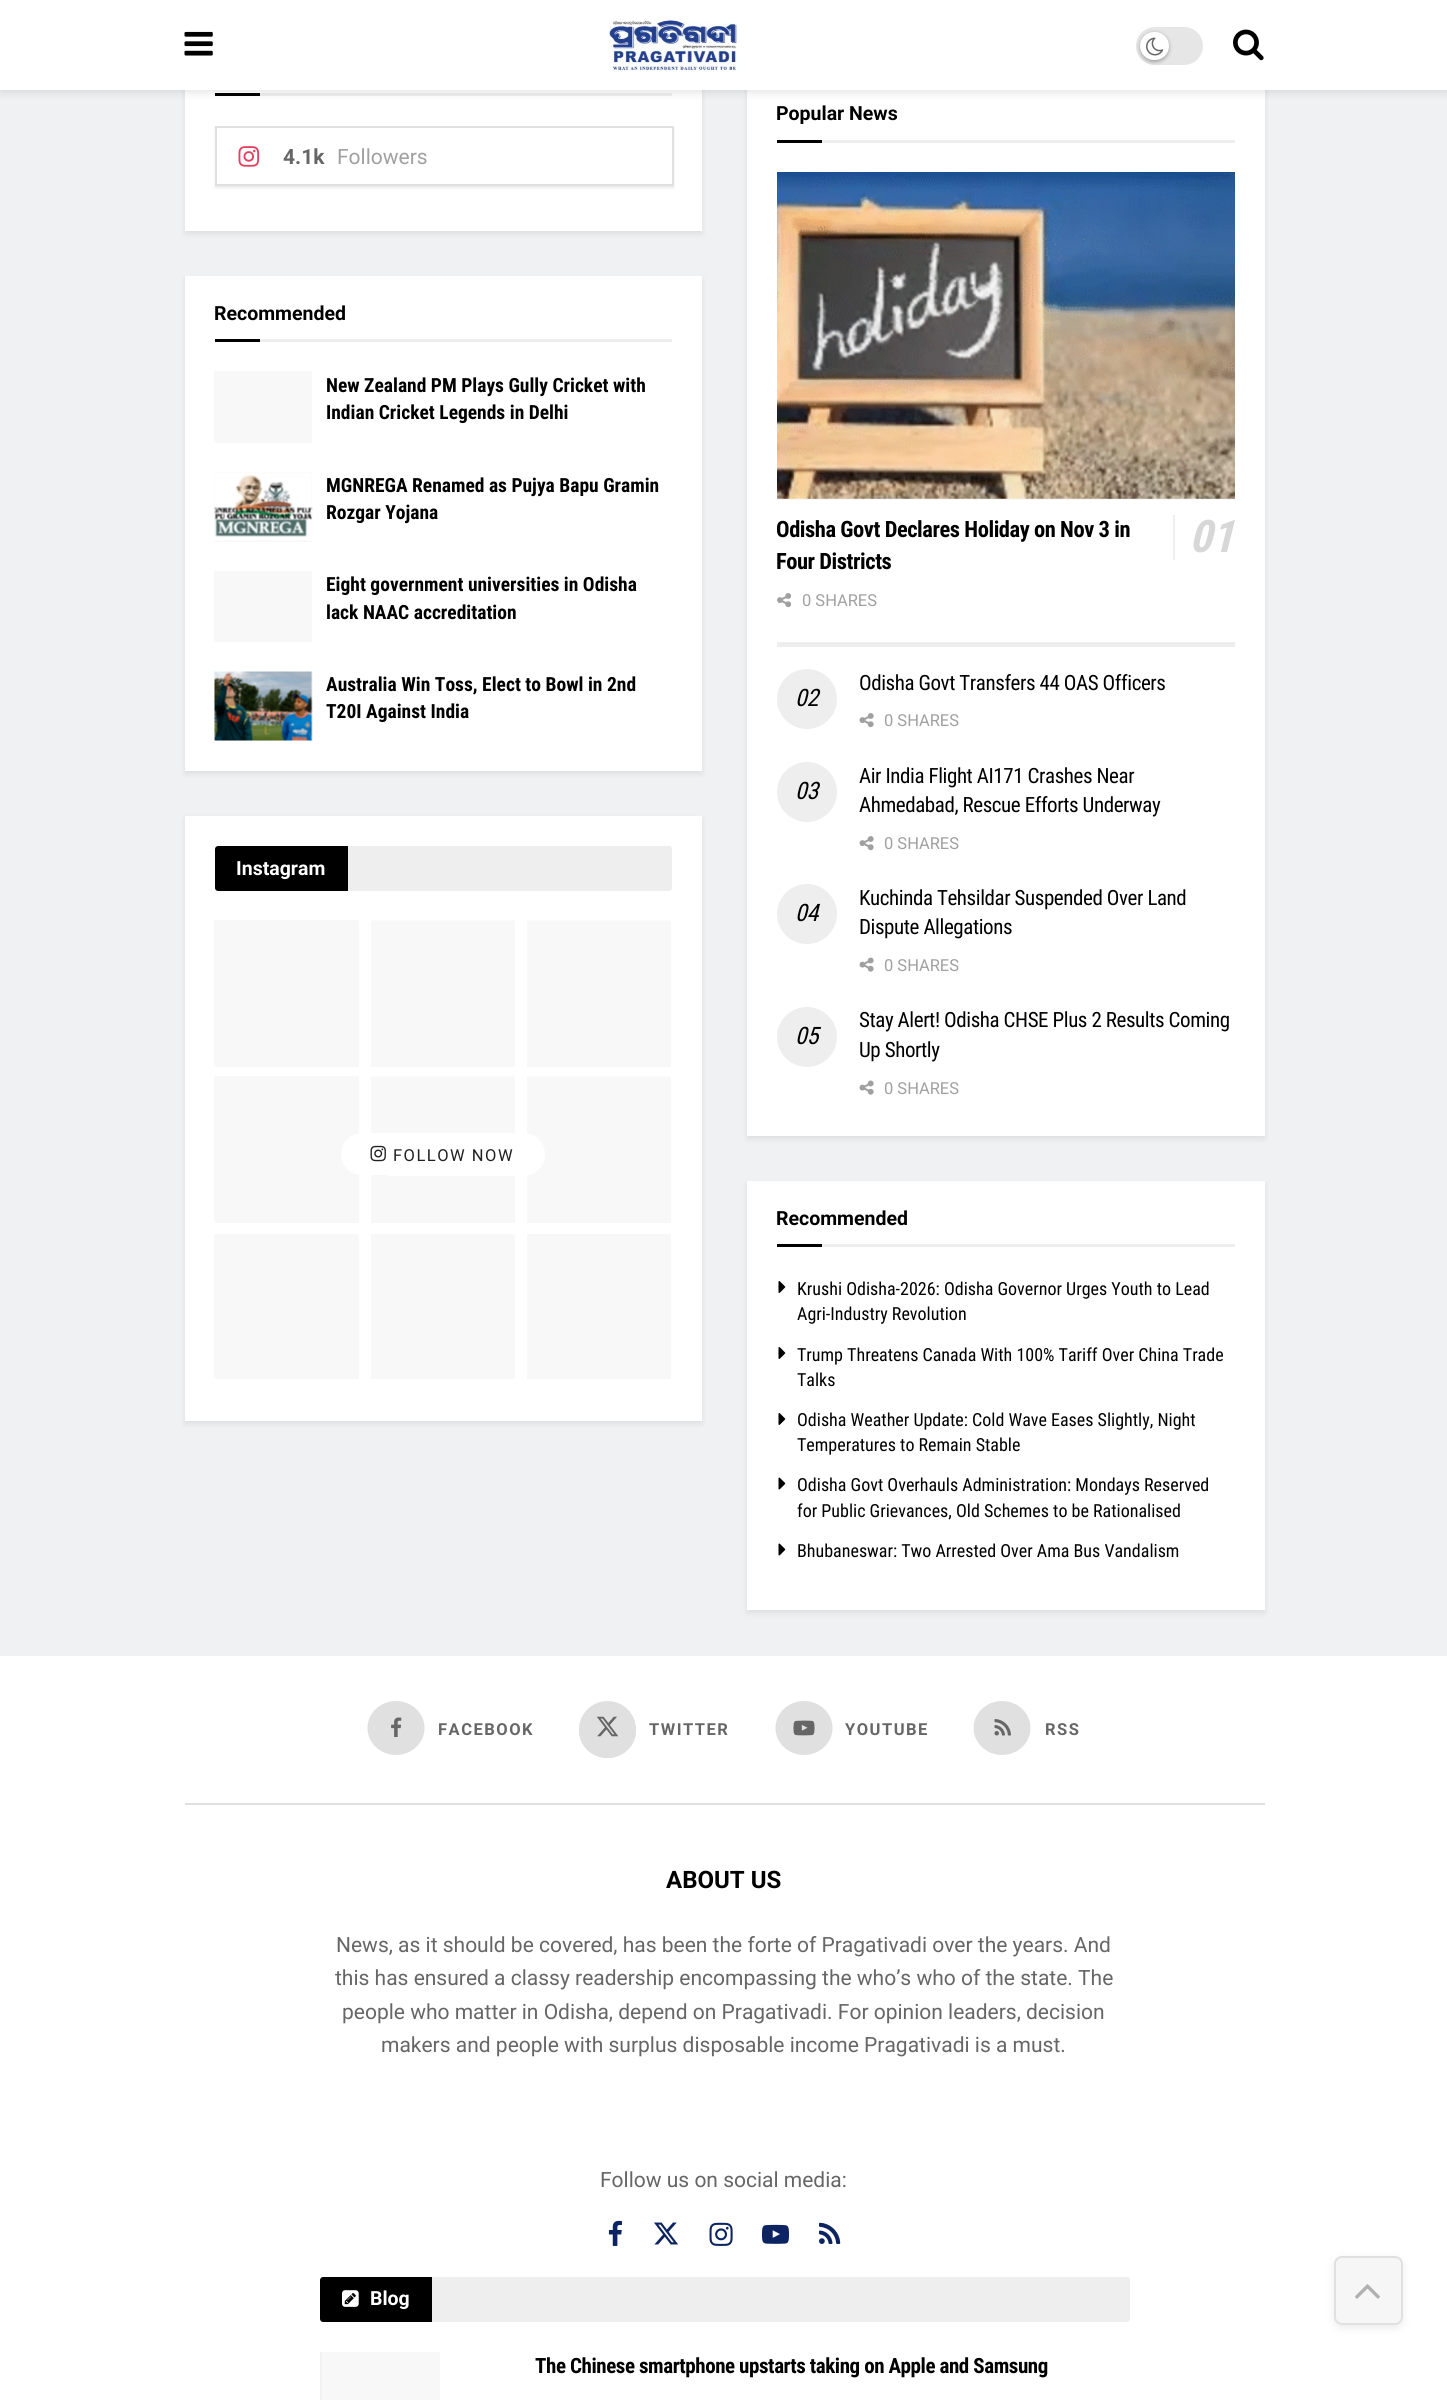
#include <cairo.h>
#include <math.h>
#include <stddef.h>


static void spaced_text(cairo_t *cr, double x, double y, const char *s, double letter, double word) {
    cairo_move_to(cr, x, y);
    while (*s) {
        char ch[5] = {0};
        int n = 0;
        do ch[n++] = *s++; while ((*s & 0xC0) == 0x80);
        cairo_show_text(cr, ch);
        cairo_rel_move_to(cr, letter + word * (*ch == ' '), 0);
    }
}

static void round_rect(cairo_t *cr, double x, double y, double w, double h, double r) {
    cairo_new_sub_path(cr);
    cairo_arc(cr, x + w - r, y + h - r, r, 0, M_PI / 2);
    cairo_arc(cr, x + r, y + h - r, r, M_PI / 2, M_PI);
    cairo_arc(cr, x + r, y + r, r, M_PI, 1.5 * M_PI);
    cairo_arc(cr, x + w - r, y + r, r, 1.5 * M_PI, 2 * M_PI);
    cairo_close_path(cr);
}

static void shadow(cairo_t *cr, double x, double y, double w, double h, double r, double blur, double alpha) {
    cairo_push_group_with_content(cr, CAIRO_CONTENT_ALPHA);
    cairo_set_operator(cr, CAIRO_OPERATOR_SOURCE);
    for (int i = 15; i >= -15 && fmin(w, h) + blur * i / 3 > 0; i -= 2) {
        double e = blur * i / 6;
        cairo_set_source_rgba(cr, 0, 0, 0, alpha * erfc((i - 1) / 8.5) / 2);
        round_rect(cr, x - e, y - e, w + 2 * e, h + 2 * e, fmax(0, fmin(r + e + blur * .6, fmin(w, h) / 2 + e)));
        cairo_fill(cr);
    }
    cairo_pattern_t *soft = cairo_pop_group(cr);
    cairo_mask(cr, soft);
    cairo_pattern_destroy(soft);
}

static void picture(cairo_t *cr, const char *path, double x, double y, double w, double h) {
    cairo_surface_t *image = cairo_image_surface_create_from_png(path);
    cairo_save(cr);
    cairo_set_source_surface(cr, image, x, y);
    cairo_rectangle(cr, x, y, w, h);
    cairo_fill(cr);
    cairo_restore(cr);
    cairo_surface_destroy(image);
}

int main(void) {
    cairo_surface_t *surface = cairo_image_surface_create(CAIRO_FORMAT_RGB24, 1447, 2400);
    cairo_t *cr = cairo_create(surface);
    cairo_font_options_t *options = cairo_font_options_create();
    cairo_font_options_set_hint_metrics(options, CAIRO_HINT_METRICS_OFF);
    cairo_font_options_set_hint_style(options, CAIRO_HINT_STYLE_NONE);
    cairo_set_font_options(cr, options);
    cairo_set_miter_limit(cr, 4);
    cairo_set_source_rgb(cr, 0.941, 0.945, 0.949);
    cairo_paint(cr);
    cairo_set_source_rgb(cr, 0, 0, 0);
    shadow(cr, 185, 33, 517, 201, 0, 3, 0.08);
    cairo_set_source_rgb(cr, 1, 1, 1);
    cairo_rectangle(cr, 185, 90, 517, 141);
    cairo_fill(cr);
    cairo_set_source_rgb(cr, 0.933, 0.933, 0.933);
    cairo_rectangle(cr, 260, 93, 412, 3);
    cairo_fill(cr);
    cairo_set_source_rgb(cr, 0, 0, 0);
    cairo_rectangle(cr, 215, 93, 45, 3);
    cairo_fill(cr);
    cairo_set_source_rgb(cr, 0, 0, 0);
    shadow(cr, 747, 80, 518, 1059, 0, 3, 0.08);
    cairo_set_source_rgb(cr, 1, 1, 1);
    cairo_rectangle(cr, 747, 90, 518, 1046);
    cairo_fill(cr);
    cairo_set_source_rgb(cr, 0, 0, 0);
    shadow(cr, 0, 3, 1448, 90, 0, 4.5, 0.1);
    cairo_set_source_rgb(cr, 1, 1, 1);
    cairo_rectangle(cr, 0, 0, 1447, 90);
    cairo_fill(cr);
    picture(cr, "img1.png", 184, 31, 29, 25);
    picture(cr, "img2.png", 609, 19, 131, 54);
    cairo_set_source_rgb(cr, 0.902, 0.902, 0.902);
    round_rect(cr, 1136, 27, 67, 38, 19);
    cairo_fill(cr);
    cairo_set_source_rgb(cr, 0, 0, 0);
    shadow(cr, 1140, 33, 29, 29, 14.5, 2, 0.3);
    cairo_set_source_rgb(cr, 1, 1, 1);
    round_rect(cr, 1140, 32, 29, 28, 14);
    cairo_fill(cr);
    picture(cr, "img3.png", 1146, 37, 18, 19);
    picture(cr, "img4.png", 1233, 29, 31, 32);
    cairo_set_source_rgb(cr, 0, 0, 0);
    shadow(cr, 215, 128, 459, 60, 0, 1.5, 0.08);
    cairo_set_source_rgb(cr, 1, 1, 1);
    cairo_rectangle(cr, 216, 127, 457, 58);
    cairo_fill_preserve(cr);
    cairo_set_source_rgb(cr, 0.878, 0.878, 0.878);
    cairo_stroke(cr);
    picture(cr, "img5.png", 238, 146, 22, 21);
    cairo_select_font_face(cr, "Roboto", CAIRO_FONT_SLANT_NORMAL, CAIRO_FONT_WEIGHT_BOLD);
    cairo_set_font_size(cr, 21);
    cairo_set_source_rgb(cr, 0.4, 0.4, 0.4);
    cairo_move_to(cr, 283, 164);
    cairo_show_text(cr, "4.1k");
    cairo_select_font_face(cr, "Roboto", CAIRO_FONT_SLANT_NORMAL, CAIRO_FONT_WEIGHT_NORMAL);
    cairo_set_source_rgb(cr, 0.627, 0.627, 0.627);
    cairo_move_to(cr, 337, 164);
    cairo_show_text(cr, "Followers");
    cairo_set_source_rgb(cr, 0, 0, 0);
    shadow(cr, 185, 279, 517, 495, 0, 3, 0.08);
    cairo_set_source_rgb(cr, 1, 1, 1);
    cairo_rectangle(cr, 185, 276, 517, 495);
    cairo_fill(cr);
    cairo_set_source_rgb(cr, 0.933, 0.933, 0.933);
    cairo_rectangle(cr, 260, 339, 412, 3);
    cairo_fill(cr);
    cairo_select_font_face(cr, "Roboto", CAIRO_FONT_SLANT_NORMAL, CAIRO_FONT_WEIGHT_BOLD);
    cairo_set_font_size(cr, 19.5);
    cairo_set_source_rgb(cr, 0, 0, 0);
    cairo_move_to(cr, 214, 320);
    cairo_show_text(cr, "Recommended");
    cairo_rectangle(cr, 215, 339, 45, 3);
    cairo_fill(cr);
    cairo_set_source_rgb(cr, 0.969, 0.969, 0.969);
    cairo_rectangle(cr, 215, 372, 97, 71);
    cairo_fill(cr);
    cairo_rectangle(cr, 214, 371, 97, 70);
    cairo_fill(cr);
    cairo_select_font_face(cr, "Roboto Condensed", CAIRO_FONT_SLANT_NORMAL, CAIRO_FONT_WEIGHT_BOLD);
    cairo_set_source_rgb(cr, 0, 0, 0);
    cairo_move_to(cr, 326, 392);
    cairo_show_text(cr, "New Zealand PM Plays Gully Cricket with");
    cairo_move_to(cr, 326, 419);
    cairo_show_text(cr, "Indian Cricket Legends in Delhi");
    cairo_set_source_rgb(cr, 0.969, 0.969, 0.969);
    cairo_rectangle(cr, 215, 541, 97, 1);
    cairo_fill(cr);
    cairo_rectangle(cr, 214, 472, 98, 69);
    cairo_fill(cr);
    picture(cr, "img6.png", 214, 472, 99, 69);
    cairo_set_source_rgb(cr, 0, 0, 0);
    cairo_move_to(cr, 326, 492);
    cairo_show_text(cr, "MGNREGA Renamed as Pujya Bapu Gramin");
    cairo_move_to(cr, 326, 519);
    cairo_show_text(cr, "Rozgar Yojana");
    cairo_set_source_rgb(cr, 0.969, 0.969, 0.969);
    cairo_rectangle(cr, 215, 572, 97, 70);
    cairo_fill(cr);
    cairo_rectangle(cr, 214, 571, 97, 70);
    cairo_fill(cr);
    cairo_set_source_rgb(cr, 0, 0, 0);
    cairo_move_to(cr, 326, 591);
    cairo_show_text(cr, "Eight government universities in Odisha");
    cairo_move_to(cr, 326, 619);
    cairo_show_text(cr, "lack NAAC accreditation");
    cairo_set_source_rgb(cr, 0.969, 0.969, 0.969);
    cairo_rectangle(cr, 215, 672, 97, 69);
    cairo_fill(cr);
    cairo_set_source_rgb(cr, 0.984, 0.984, 0.984);
    cairo_rectangle(cr, 214, 672, 1, 68);
    cairo_fill(cr);
    picture(cr, "img7.png", 214, 671, 99, 70);
    cairo_set_source_rgb(cr, 0, 0, 0);
    cairo_move_to(cr, 326, 691);
    cairo_show_text(cr, "Australia Win Toss, Elect to Bowl in 2nd");
    cairo_move_to(cr, 326, 718);
    cairo_show_text(cr, "T20I Against India");
    cairo_set_source_rgb(cr, 0, 0, 0);
    shadow(cr, 185, 819, 517, 605, 0, 3, 0.08);
    cairo_set_source_rgb(cr, 1, 1, 1);
    cairo_rectangle(cr, 185, 816, 517, 605);
    cairo_fill(cr);
    cairo_set_source_rgb(cr, 0.933, 0.933, 0.933);
    round_rect(cr, 215, 846, 457, 45, 3);
    cairo_fill(cr);
    cairo_set_source_rgb(cr, 0, 0, 0);
    cairo_new_path(cr);
    cairo_move_to(cr, 218, 846);
    cairo_line_to(cr, 348, 846);
    cairo_line_to(cr, 348, 891);
    cairo_line_to(cr, 218, 891);
    cairo_curve_to(cr, 216.5, 891, 215, 889.5, 215, 888);
    cairo_line_to(cr, 215, 849);
    cairo_curve_to(cr, 215, 847.5, 216.5, 846, 218, 846);
    cairo_close_path(cr);
    cairo_fill(cr);
    cairo_select_font_face(cr, "Roboto", CAIRO_FONT_SLANT_NORMAL, CAIRO_FONT_WEIGHT_BOLD);
    cairo_set_source_rgb(cr, 1, 1, 1);
    cairo_move_to(cr, 236, 875);
    cairo_show_text(cr, "Instagram");
    cairo_set_source_rgb(cr, 0.969, 0.969, 0.969);
    cairo_rectangle(cr, 215, 921, 144, 146);
    cairo_fill(cr);
    cairo_rectangle(cr, 214, 920, 144, 145);
    cairo_fill(cr);
    cairo_rectangle(cr, 371, 921, 144, 146);
    cairo_fill(cr);
    cairo_set_source_rgb(cr, 0.984, 0.984, 0.984);
    cairo_rectangle(cr, 371, 920, 143, 1);
    cairo_fill(cr);
    cairo_set_source_rgb(cr, 0.969, 0.969, 0.969);
    cairo_rectangle(cr, 527, 921, 144, 146);
    cairo_fill(cr);
    cairo_set_source_rgb(cr, 0.984, 0.984, 0.984);
    cairo_rectangle(cr, 527, 920, 143, 1);
    cairo_fill(cr);
    cairo_set_source_rgb(cr, 0.969, 0.969, 0.969);
    cairo_rectangle(cr, 215, 1077, 144, 146);
    cairo_fill(cr);
    cairo_rectangle(cr, 214, 1076, 144, 145);
    cairo_fill(cr);
    cairo_rectangle(cr, 371, 1077, 144, 146);
    cairo_fill(cr);
    cairo_set_source_rgb(cr, 0.984, 0.984, 0.984);
    cairo_rectangle(cr, 371, 1076, 143, 1);
    cairo_fill(cr);
    cairo_set_source_rgb(cr, 0.969, 0.969, 0.969);
    cairo_rectangle(cr, 527, 1077, 144, 146);
    cairo_fill(cr);
    cairo_set_source_rgb(cr, 0.984, 0.984, 0.984);
    cairo_rectangle(cr, 527, 1076, 143, 1);
    cairo_fill(cr);
    cairo_set_source_rgb(cr, 0.969, 0.969, 0.969);
    cairo_rectangle(cr, 215, 1235, 144, 144);
    cairo_fill(cr);
    cairo_rectangle(cr, 214, 1234, 144, 144);
    cairo_fill(cr);
    cairo_rectangle(cr, 371, 1235, 144, 144);
    cairo_fill(cr);
    cairo_rectangle(cr, 371, 1234, 143, 1);
    cairo_fill(cr);
    cairo_rectangle(cr, 527, 1235, 144, 144);
    cairo_fill(cr);
    picture(cr, "img8.png", 527, 1234, 144, 1);
    cairo_set_source_rgb(cr, 1, 1, 1);
    cairo_new_path(cr);
    cairo_move_to(cr, 362, 1133);
    cairo_line_to(cr, 387, 1133);
    cairo_line_to(cr, 387, 1175);
    cairo_line_to(cr, 362, 1175);
    cairo_curve_to(cr, 350.5, 1175, 341, 1165.5, 341, 1154);
    cairo_curve_to(cr, 341, 1142.5, 350.5, 1133, 362, 1133);
    cairo_close_path(cr);
    cairo_fill(cr);
    cairo_new_path(cr);
    cairo_move_to(cr, 387, 1133);
    cairo_line_to(cr, 523.5, 1133);
    cairo_curve_to(cr, 535.5, 1133, 545, 1142.5, 545, 1154.5);
    cairo_curve_to(cr, 545, 1166.5, 535.5, 1176, 523.5, 1176);
    cairo_line_to(cr, 387, 1176);
    cairo_close_path(cr);
    cairo_fill(cr);
    picture(cr, "img9.png", 370, 1145, 16, 17);
    cairo_select_font_face(cr, "Roboto", CAIRO_FONT_SLANT_NORMAL, CAIRO_FONT_WEIGHT_NORMAL);
    cairo_set_font_size(cr, 16.5);
    cairo_set_source_rgb(cr, 0.129, 0.129, 0.129);
    spaced_text(cr, 393, 1161, "FOLLOW NOW", 1.5, 0);
    cairo_set_source_rgb(cr, 0.933, 0.933, 0.933);
    cairo_rectangle(cr, 822, 140, 413, 3);
    cairo_fill(cr);
    cairo_select_font_face(cr, "Roboto", CAIRO_FONT_SLANT_NORMAL, CAIRO_FONT_WEIGHT_BOLD);
    cairo_set_font_size(cr, 19.5);
    cairo_set_source_rgb(cr, 0, 0, 0);
    cairo_move_to(cr, 776, 120);
    cairo_show_text(cr, "Popular News");
    cairo_rectangle(cr, 777, 140, 45, 3);
    cairo_fill(cr);
    cairo_set_source_rgb(cr, 0.933, 0.933, 0.933);
    cairo_rectangle(cr, 777, 642, 458, 5);
    cairo_fill(cr);
    cairo_set_source_rgb(cr, 0.969, 0.969, 0.969);
    cairo_rectangle(cr, 777, 498, 458, 2);
    cairo_fill(cr);
    picture(cr, "img10.png", 777, 172, 458, 327);
    cairo_select_font_face(cr, "Roboto Condensed", CAIRO_FONT_SLANT_NORMAL, CAIRO_FONT_WEIGHT_BOLD);
    cairo_set_font_size(cr, 22.5);
    cairo_set_source_rgb(cr, 0, 0, 0);
    spaced_text(cr, 776, 537, "Odisha Govt Declares Holiday on Nov 3 in", -0.45, 0);
    cairo_set_source_rgb(cr, 0.933, 0.933, 0.933);
    cairo_rectangle(cr, 1173, 515, 2, 45);
    cairo_fill(cr);
    cairo_select_font_face(cr, "Roboto Condensed", CAIRO_FONT_SLANT_ITALIC, CAIRO_FONT_WEIGHT_BOLD);
    cairo_set_font_size(cr, 45);
    cairo_set_source_rgb(cr, 0.843, 0.843, 0.843);
    spaced_text(cr, 1189, 552, "01", -0.45, 0);
    cairo_select_font_face(cr, "Roboto Condensed", CAIRO_FONT_SLANT_NORMAL, CAIRO_FONT_WEIGHT_BOLD);
    cairo_set_font_size(cr, 22.5);
    cairo_set_source_rgb(cr, 0, 0, 0);
    spaced_text(cr, 776, 569, "Four Districts", -0.45, 0);
    picture(cr, "img11.png", 777, 593, 15, 15);
    cairo_select_font_face(cr, "Roboto", CAIRO_FONT_SLANT_NORMAL, CAIRO_FONT_WEIGHT_NORMAL);
    cairo_set_font_size(cr, 16.5);
    cairo_set_source_rgb(cr, 0.627, 0.627, 0.627);
    cairo_move_to(cr, 802, 606);
    cairo_show_text(cr, "0 SHARES");
    cairo_select_font_face(cr, "Roboto Condensed", CAIRO_FONT_SLANT_NORMAL, CAIRO_FONT_WEIGHT_NORMAL);
    cairo_set_font_size(cr, 21);
    cairo_set_source_rgb(cr, 0, 0, 0);
    spaced_text(cr, 859, 690, "Odisha Govt Transfers 44 OAS Officers", -0.42, 0);
    cairo_set_source_rgb(cr, 0.933, 0.933, 0.933);
    cairo_new_path(cr);
    cairo_arc(cr, 807, 699, 30, 0, 2 * M_PI);
    cairo_fill(cr);
    cairo_select_font_face(cr, "Roboto Condensed", CAIRO_FONT_SLANT_ITALIC, CAIRO_FONT_WEIGHT_NORMAL);
    cairo_set_font_size(cr, 24);
    cairo_set_source_rgb(cr, 0, 0, 0);
    spaced_text(cr, 795, 706, "02", -0.42, 0);
    picture(cr, "img12.png", 859, 713, 15, 15);
    cairo_select_font_face(cr, "Roboto", CAIRO_FONT_SLANT_NORMAL, CAIRO_FONT_WEIGHT_NORMAL);
    cairo_set_font_size(cr, 16.5);
    cairo_set_source_rgb(cr, 0.627, 0.627, 0.627);
    cairo_move_to(cr, 884, 726);
    cairo_show_text(cr, "0 SHARES");
    cairo_select_font_face(cr, "Roboto Condensed", CAIRO_FONT_SLANT_NORMAL, CAIRO_FONT_WEIGHT_NORMAL);
    cairo_set_font_size(cr, 21);
    cairo_set_source_rgb(cr, 0, 0, 0);
    spaced_text(cr, 859, 783, "Air India Flight AI171 Crashes Near", -0.42, 0);
    cairo_set_source_rgb(cr, 0.933, 0.933, 0.933);
    cairo_new_path(cr);
    cairo_arc(cr, 807, 792, 30, 0, 2 * M_PI);
    cairo_fill(cr);
    cairo_select_font_face(cr, "Roboto Condensed", CAIRO_FONT_SLANT_ITALIC, CAIRO_FONT_WEIGHT_NORMAL);
    cairo_set_font_size(cr, 24);
    cairo_set_source_rgb(cr, 0, 0, 0);
    spaced_text(cr, 795, 799, "03", -0.42, 0);
    cairo_select_font_face(cr, "Roboto Condensed", CAIRO_FONT_SLANT_NORMAL, CAIRO_FONT_WEIGHT_NORMAL);
    cairo_set_font_size(cr, 21);
    spaced_text(cr, 859, 812, "Ahmedabad, Rescue Efforts Underway", -0.42, 0);
    picture(cr, "img12.png", 859, 836, 15, 15);
    cairo_select_font_face(cr, "Roboto", CAIRO_FONT_SLANT_NORMAL, CAIRO_FONT_WEIGHT_NORMAL);
    cairo_set_font_size(cr, 16.5);
    cairo_set_source_rgb(cr, 0.627, 0.627, 0.627);
    cairo_move_to(cr, 884, 849);
    cairo_show_text(cr, "0 SHARES");
    cairo_select_font_face(cr, "Roboto Condensed", CAIRO_FONT_SLANT_NORMAL, CAIRO_FONT_WEIGHT_NORMAL);
    cairo_set_font_size(cr, 21);
    cairo_set_source_rgb(cr, 0, 0, 0);
    spaced_text(cr, 859, 905, "Kuchinda Tehsildar Suspended Over Land", -0.42, 0);
    cairo_set_source_rgb(cr, 0.933, 0.933, 0.933);
    cairo_new_path(cr);
    cairo_arc(cr, 807, 914, 30, 0, 2 * M_PI);
    cairo_fill(cr);
    cairo_select_font_face(cr, "Roboto Condensed", CAIRO_FONT_SLANT_ITALIC, CAIRO_FONT_WEIGHT_NORMAL);
    cairo_set_font_size(cr, 24);
    cairo_set_source_rgb(cr, 0, 0, 0);
    spaced_text(cr, 795, 921, "04", -0.42, 0);
    cairo_select_font_face(cr, "Roboto Condensed", CAIRO_FONT_SLANT_NORMAL, CAIRO_FONT_WEIGHT_NORMAL);
    cairo_set_font_size(cr, 21);
    spaced_text(cr, 859, 934, "Dispute Allegations", -0.42, 0);
    picture(cr, "img13.png", 859, 957, 15, 15);
    cairo_select_font_face(cr, "Roboto", CAIRO_FONT_SLANT_NORMAL, CAIRO_FONT_WEIGHT_NORMAL);
    cairo_set_font_size(cr, 16.5);
    cairo_set_source_rgb(cr, 0.627, 0.627, 0.627);
    cairo_move_to(cr, 884, 971);
    cairo_show_text(cr, "0 SHARES");
    cairo_select_font_face(cr, "Roboto Condensed", CAIRO_FONT_SLANT_NORMAL, CAIRO_FONT_WEIGHT_NORMAL);
    cairo_set_font_size(cr, 21);
    cairo_set_source_rgb(cr, 0, 0, 0);
    spaced_text(cr, 859, 1027, "Stay Alert! Odisha CHSE Plus 2 Results Coming", -0.42, 0);
    cairo_set_source_rgb(cr, 0.933, 0.933, 0.933);
    cairo_new_path(cr);
    cairo_arc(cr, 807, 1037, 30, 0, 2 * M_PI);
    cairo_fill(cr);
    cairo_select_font_face(cr, "Roboto Condensed", CAIRO_FONT_SLANT_ITALIC, CAIRO_FONT_WEIGHT_NORMAL);
    cairo_set_font_size(cr, 24);
    cairo_set_source_rgb(cr, 0, 0, 0);
    spaced_text(cr, 795, 1044, "05", -0.42, 0);
    cairo_select_font_face(cr, "Roboto Condensed", CAIRO_FONT_SLANT_NORMAL, CAIRO_FONT_WEIGHT_NORMAL);
    cairo_set_font_size(cr, 21);
    spaced_text(cr, 859, 1057, "Up Shortly", -0.42, 0);
    picture(cr, "img13.png", 859, 1080, 15, 15);
    cairo_select_font_face(cr, "Roboto", CAIRO_FONT_SLANT_NORMAL, CAIRO_FONT_WEIGHT_NORMAL);
    cairo_set_font_size(cr, 16.5);
    cairo_set_source_rgb(cr, 0.627, 0.627, 0.627);
    cairo_move_to(cr, 884, 1094);
    cairo_show_text(cr, "0 SHARES");
    cairo_set_source_rgb(cr, 0, 0, 0);
    shadow(cr, 747, 1184, 518, 429, 0, 3, 0.08);
    cairo_set_source_rgb(cr, 1, 1, 1);
    cairo_rectangle(cr, 747, 1181, 518, 429);
    cairo_fill(cr);
    cairo_set_source_rgb(cr, 0.933, 0.933, 0.933);
    cairo_rectangle(cr, 822, 1244, 413, 3);
    cairo_fill(cr);
    cairo_select_font_face(cr, "Roboto", CAIRO_FONT_SLANT_NORMAL, CAIRO_FONT_WEIGHT_BOLD);
    cairo_set_font_size(cr, 19.5);
    cairo_set_source_rgb(cr, 0, 0, 0);
    cairo_move_to(cr, 776, 1225);
    cairo_show_text(cr, "Recommended");
    cairo_rectangle(cr, 777, 1244, 45, 3);
    cairo_fill(cr);
    picture(cr, "img14.png", 778, 1281, 8, 12);
    cairo_select_font_face(cr, "Roboto Condensed", CAIRO_FONT_SLANT_NORMAL, CAIRO_FONT_WEIGHT_NORMAL);
    cairo_set_font_size(cr, 18);
    cairo_move_to(cr, 797, 1295);
    cairo_show_text(cr, "Krushi Odisha-2026: Odisha Governor Urges Youth to Lead");
    cairo_move_to(cr, 797, 1320);
    cairo_show_text(cr, "Agri-Industry Revolution");
    picture(cr, "img14.png", 778, 1347, 8, 12);
    cairo_move_to(cr, 797, 1361);
    cairo_show_text(cr, "Trump Threatens Canada With 100% Tariff Over China Trade");
    cairo_move_to(cr, 797, 1386);
    cairo_show_text(cr, "Talks");
    picture(cr, "img14.png", 778, 1413, 8, 12);
    cairo_move_to(cr, 797, 1426);
    cairo_show_text(cr, "Odisha Weather Update: Cold Wave Eases Slightly, Night");
    cairo_move_to(cr, 797, 1451);
    cairo_show_text(cr, "Temperatures to Remain Stable");
    picture(cr, "img15.png", 778, 1477, 8, 13);
    cairo_move_to(cr, 797, 1491);
    cairo_show_text(cr, "Odisha Govt Overhauls Administration: Mondays Reserved");
    cairo_move_to(cr, 797, 1517);
    cairo_show_text(cr, "for Public Grievances, Old Schemes to be Rationalised");
    picture(cr, "img15.png", 778, 1543, 8, 13);
    cairo_move_to(cr, 797, 1557);
    cairo_show_text(cr, "Bhubaneswar: Two Arrested Over Ama Bus Vandalism");
    cairo_set_source_rgb(cr, 1, 1, 1);
    cairo_rectangle(cr, 0, 1656, 1447, 744);
    cairo_fill(cr);
    cairo_set_source_rgb(cr, 0.878, 0.878, 0.878);
    cairo_rectangle(cr, 185, 1803, 1080, 2);
    cairo_fill(cr);
    cairo_new_path(cr);
    cairo_move_to(cr, 396, 1701);
    cairo_curve_to(cr, 411.5, 1701, 424.5, 1713, 424.5, 1728);
    cairo_curve_to(cr, 424.5, 1743, 411.5, 1755, 396, 1755);
    cairo_curve_to(cr, 380.5, 1755, 367.5, 1743, 367.5, 1728);
    cairo_curve_to(cr, 367.5, 1713, 380.5, 1701, 396, 1701);
    cairo_close_path(cr);
    cairo_fill(cr);
    picture(cr, "img16.png", 391, 1717, 11, 20);
    cairo_select_font_face(cr, "Roboto", CAIRO_FONT_SLANT_NORMAL, CAIRO_FONT_WEIGHT_BOLD);
    cairo_set_font_size(cr, 16.5);
    cairo_set_source_rgb(cr, 0.4, 0.4, 0.4);
    spaced_text(cr, 438, 1735, "FACEBOOK", 1.5, 0);
    cairo_set_source_rgb(cr, 0.878, 0.878, 0.878);
    cairo_new_path(cr);
    cairo_arc(cr, 607.5, 1729.5, 28.5, 0, 2 * M_PI);
    cairo_fill(cr);
    cairo_new_path(cr);
    cairo_move_to(cr, 607.5, 1704);
    cairo_curve_to(cr, 623, 1704, 636, 1716, 636, 1731);
    cairo_curve_to(cr, 636, 1746, 623, 1758, 607.5, 1758);
    cairo_curve_to(cr, 592, 1758, 579, 1746, 579, 1731);
    cairo_curve_to(cr, 579, 1716, 592, 1704, 607.5, 1704);
    cairo_close_path(cr);
    cairo_fill(cr);
    picture(cr, "img17.png", 596, 1716, 23, 21);
    cairo_set_source_rgb(cr, 0.4, 0.4, 0.4);
    spaced_text(cr, 649, 1735, "TWITTER", 1.5, 0);
    cairo_set_source_rgb(cr, 0.878, 0.878, 0.878);
    cairo_new_path(cr);
    cairo_move_to(cr, 804, 1701);
    cairo_curve_to(cr, 819.5, 1701, 832.5, 1713, 832.5, 1728);
    cairo_curve_to(cr, 832.5, 1743, 819.5, 1755, 804, 1755);
    cairo_curve_to(cr, 788.5, 1755, 775.5, 1743, 775.5, 1728);
    cairo_curve_to(cr, 775.5, 1713, 788.5, 1701, 804, 1701);
    cairo_close_path(cr);
    cairo_fill(cr);
    picture(cr, "img18.png", 793, 1720, 22, 16);
    cairo_set_source_rgb(cr, 0.4, 0.4, 0.4);
    spaced_text(cr, 845, 1735, "YOUTUBE", 1.5, 0);
    cairo_set_source_rgb(cr, 0.878, 0.878, 0.878);
    cairo_new_path(cr);
    cairo_move_to(cr, 1002, 1701);
    cairo_curve_to(cr, 1017.5, 1701, 1030.5, 1713, 1030.5, 1728);
    cairo_curve_to(cr, 1030.5, 1743, 1017.5, 1755, 1002, 1755);
    cairo_curve_to(cr, 986.5, 1755, 973.5, 1743, 973.5, 1728);
    cairo_curve_to(cr, 973.5, 1713, 986.5, 1701, 1002, 1701);
    cairo_close_path(cr);
    cairo_fill(cr);
    picture(cr, "img19.png", 994, 1719, 17, 17);
    cairo_set_source_rgb(cr, 0.4, 0.4, 0.4);
    spaced_text(cr, 1045, 1735, "RSS", 1.5, 0);
    cairo_set_font_size(cr, 24);
    cairo_set_source_rgb(cr, 0, 0, 0);
    cairo_move_to(cr, 666, 1888);
    cairo_show_text(cr, "ABOUT US");
    cairo_select_font_face(cr, "Roboto", CAIRO_FONT_SLANT_NORMAL, CAIRO_FONT_WEIGHT_NORMAL);
    cairo_set_font_size(cr, 21);
    cairo_set_source_rgb(cr, 0.4, 0.4, 0.4);
    cairo_move_to(cr, 336, 1952);
    cairo_show_text(cr, "News, as it should be covered, has been the forte of Pragativadi over the years. And");
    cairo_move_to(cr, 335, 1985);
    cairo_show_text(cr, "this has ensured a classy readership encompassing the who’s who of the state. The");
    cairo_move_to(cr, 342, 2019);
    cairo_show_text(cr, "people who matter in Odisha, depend on Pragativadi. For opinion leaders, decision");
    cairo_move_to(cr, 381, 2052);
    cairo_show_text(cr, "makers and people with surplus disposable income Pragativadi is a must.");
    cairo_move_to(cr, 600, 2187);
    cairo_show_text(cr, "Follow us on social media:");
    picture(cr, "img20.png", 608, 2220, 14, 26);
    picture(cr, "img21.png", 654, 2222, 24, 23);
    picture(cr, "img22.png", 709, 2222, 24, 24);
    picture(cr, "img23.png", 762, 2224, 27, 20);
    picture(cr, "img24.png", 819, 2222, 22, 22);
    cairo_set_source_rgb(cr, 0.933, 0.933, 0.933);
    round_rect(cr, 320, 2277, 810, 45, 3);
    cairo_fill(cr);
    cairo_set_source_rgb(cr, 0, 0, 0);
    cairo_new_path(cr);
    cairo_move_to(cr, 323, 2277);
    cairo_line_to(cr, 432, 2277);
    cairo_line_to(cr, 432, 2322);
    cairo_line_to(cr, 323, 2322);
    cairo_curve_to(cr, 321.5, 2322, 320, 2320.5, 320, 2319);
    cairo_line_to(cr, 320, 2280);
    cairo_curve_to(cr, 320, 2278.5, 321.5, 2277, 323, 2277);
    cairo_close_path(cr);
    cairo_fill(cr);
    picture(cr, "img25.png", 342, 2290, 17, 17);
    cairo_select_font_face(cr, "Roboto", CAIRO_FONT_SLANT_NORMAL, CAIRO_FONT_WEIGHT_BOLD);
    cairo_set_font_size(cr, 19.5);
    cairo_set_source_rgb(cr, 1, 1, 1);
    cairo_move_to(cr, 370, 2305);
    cairo_show_text(cr, "Blog");
    cairo_set_source_rgb(cr, 0.969, 0.969, 0.969);
    cairo_rectangle(cr, 322, 2352, 118, 48);
    cairo_fill(cr);
    cairo_set_source_rgb(cr, 0.949, 0.949, 0.949);
    cairo_rectangle(cr, 320, 2352, 2, 48);
    cairo_fill(cr);
    cairo_select_font_face(cr, "Roboto Condensed", CAIRO_FONT_SLANT_NORMAL, CAIRO_FONT_WEIGHT_BOLD);
    cairo_set_font_size(cr, 21);
    cairo_set_source_rgb(cr, 0, 0, 0);
    spaced_text(cr, 535, 2373, "The Chinese smartphone upstarts taking on Apple and Samsung", -0.42, 0);
    cairo_save(cr);
    cairo_set_fill_rule(cr, CAIRO_FILL_RULE_EVEN_ODD);
    cairo_new_path(cr);
    cairo_move_to(cr, 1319, 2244);
    cairo_line_to(cr, 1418, 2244);
    cairo_line_to(cr, 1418, 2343);
    cairo_line_to(cr, 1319, 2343);
    cairo_close_path(cr);
    cairo_move_to(cr, 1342, 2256);
    cairo_line_to(cr, 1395, 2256);
    cairo_curve_to(cr, 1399.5, 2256, 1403, 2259.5, 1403, 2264);
    cairo_line_to(cr, 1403, 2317);
    cairo_curve_to(cr, 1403, 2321.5, 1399.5, 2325, 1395, 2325);
    cairo_line_to(cr, 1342, 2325);
    cairo_curve_to(cr, 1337.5, 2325, 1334, 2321.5, 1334, 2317);
    cairo_line_to(cr, 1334, 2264);
    cairo_curve_to(cr, 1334, 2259.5, 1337.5, 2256, 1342, 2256);
    cairo_close_path(cr);
    cairo_clip(cr);
    cairo_set_source_rgb(cr, 0.2, 0.2, 0.2);
    shadow(cr, 1334, 2259, 69, 69, 8, 4.5, 0.1);
    cairo_restore(cr);
    cairo_set_source_rgba(cr, 0.765, 0.765, 0.765, 0.15);
    round_rect(cr, 1334, 2256, 69, 69, 8);
    cairo_fill(cr);
    round_rect(cr, 1335, 2257, 67, 67, 7);
    cairo_set_source_rgba(cr, 0.2, 0.2, 0.2, 0.11);
    cairo_stroke(cr);
    picture(cr, "img26.png", 1355, 2284, 25, 15);
    cairo_surface_write_to_png(surface, "page.png");
    cairo_font_options_destroy(options);
    cairo_destroy(cr);
    cairo_surface_destroy(surface);
    return 0;
}
